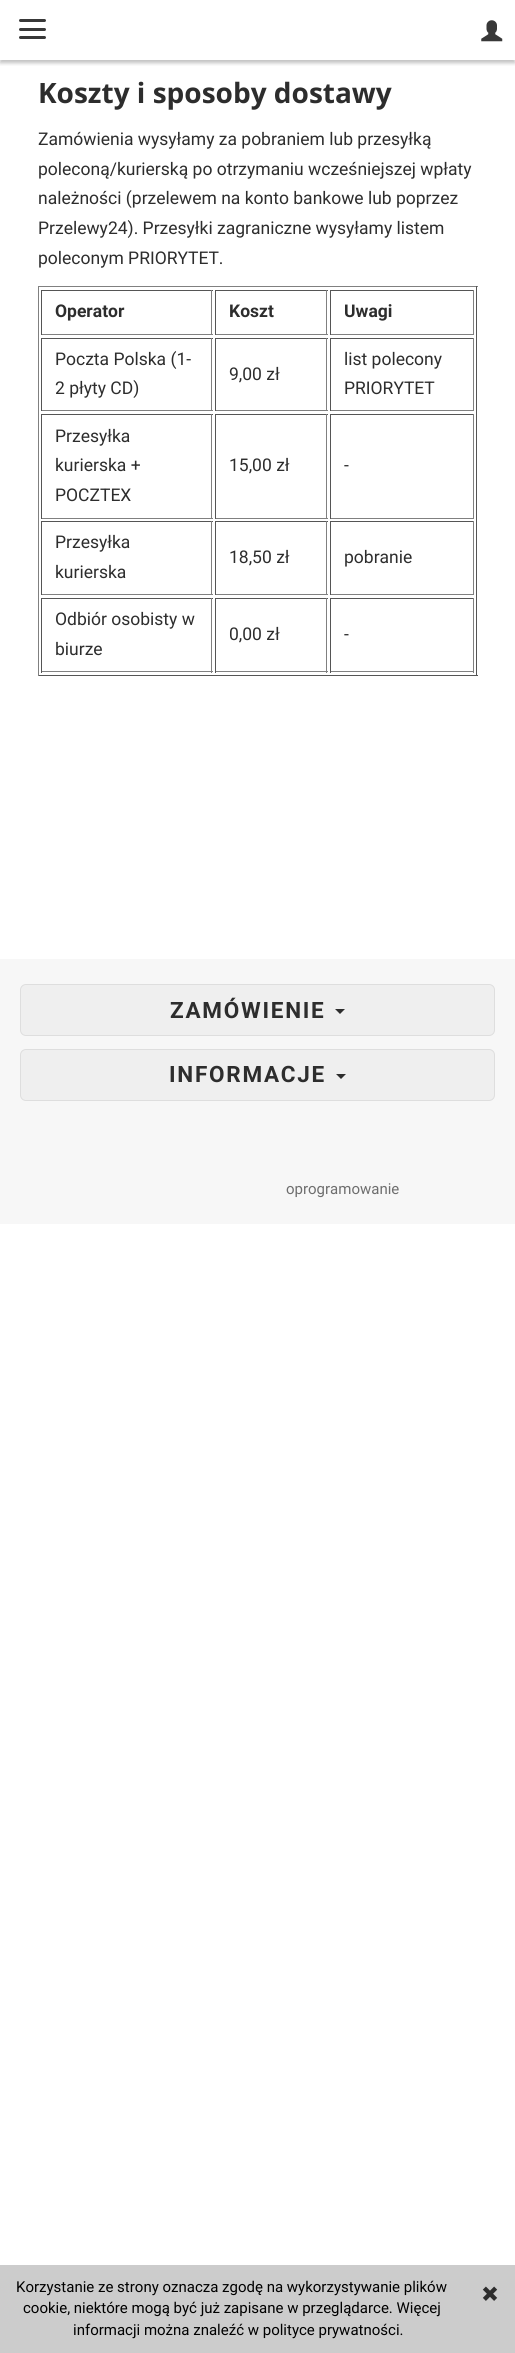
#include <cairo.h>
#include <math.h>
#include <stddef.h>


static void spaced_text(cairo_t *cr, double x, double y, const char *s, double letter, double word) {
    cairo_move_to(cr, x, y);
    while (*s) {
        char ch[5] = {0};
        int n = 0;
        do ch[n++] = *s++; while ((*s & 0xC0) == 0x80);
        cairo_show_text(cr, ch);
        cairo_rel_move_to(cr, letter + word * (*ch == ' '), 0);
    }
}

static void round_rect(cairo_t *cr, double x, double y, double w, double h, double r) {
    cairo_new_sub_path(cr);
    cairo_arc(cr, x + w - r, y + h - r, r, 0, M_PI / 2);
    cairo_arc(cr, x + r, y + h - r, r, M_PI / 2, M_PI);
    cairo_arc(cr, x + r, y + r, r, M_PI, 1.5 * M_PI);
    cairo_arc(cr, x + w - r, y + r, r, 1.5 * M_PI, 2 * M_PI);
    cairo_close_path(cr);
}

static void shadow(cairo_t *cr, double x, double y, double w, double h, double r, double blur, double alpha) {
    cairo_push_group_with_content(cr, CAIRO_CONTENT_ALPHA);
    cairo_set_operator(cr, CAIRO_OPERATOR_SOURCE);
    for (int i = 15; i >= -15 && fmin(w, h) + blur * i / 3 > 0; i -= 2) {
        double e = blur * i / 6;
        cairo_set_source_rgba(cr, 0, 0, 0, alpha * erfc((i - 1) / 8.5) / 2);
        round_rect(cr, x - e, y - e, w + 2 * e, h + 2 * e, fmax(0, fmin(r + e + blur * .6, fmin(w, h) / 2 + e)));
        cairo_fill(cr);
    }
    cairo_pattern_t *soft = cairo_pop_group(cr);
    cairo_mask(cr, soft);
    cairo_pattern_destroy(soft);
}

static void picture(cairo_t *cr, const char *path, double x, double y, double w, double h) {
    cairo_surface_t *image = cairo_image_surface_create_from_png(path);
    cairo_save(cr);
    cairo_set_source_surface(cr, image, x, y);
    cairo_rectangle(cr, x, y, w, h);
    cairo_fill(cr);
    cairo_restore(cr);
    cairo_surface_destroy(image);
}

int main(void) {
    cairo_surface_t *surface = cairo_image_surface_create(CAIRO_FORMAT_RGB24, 515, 2353);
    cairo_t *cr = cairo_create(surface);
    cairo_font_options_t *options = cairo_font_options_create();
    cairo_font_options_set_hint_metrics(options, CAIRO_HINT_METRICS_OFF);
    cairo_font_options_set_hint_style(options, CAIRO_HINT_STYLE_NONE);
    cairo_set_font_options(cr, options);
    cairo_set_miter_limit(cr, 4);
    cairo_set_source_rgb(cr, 1, 1, 1);
    cairo_paint(cr);
    cairo_save(cr);
    cairo_rectangle(cr, 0, 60, 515, 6);
    cairo_clip(cr);
    cairo_set_source_rgb(cr, 0, 0, 0);
    shadow(cr, 0, 3, 515, 60, 0, 2, 0.25);
    cairo_restore(cr);
    cairo_set_source_rgb(cr, 0.22, 0.22, 0.22);
    round_rect(cr, 19, 19, 27, 3, 1.5);
    cairo_fill(cr);
    round_rect(cr, 19, 28, 27, 3, 1.5);
    cairo_fill(cr);
    round_rect(cr, 19, 36, 27, 3, 1.5);
    cairo_fill(cr);
    picture(cr, "img1.png", 481, 20, 22, 22);
    cairo_select_font_face(cr, "Open Sans", CAIRO_FONT_SLANT_NORMAL, CAIRO_FONT_WEIGHT_BOLD);
    cairo_set_font_size(cr, 28);
    cairo_set_source_rgb(cr, 0.176, 0.176, 0.176);
    cairo_move_to(cr, 38, 103);
    cairo_show_text(cr, "Koszty i sposoby dostawy");
    cairo_select_font_face(cr, "Roboto", CAIRO_FONT_SLANT_NORMAL, CAIRO_FONT_WEIGHT_NORMAL);
    cairo_set_font_size(cr, 17.5);
    cairo_move_to(cr, 38, 145);
    cairo_show_text(cr, "Zamówienia wysyłamy za pobraniem lub przesyłką");
    cairo_move_to(cr, 38, 175);
    cairo_show_text(cr, "poleconą/kurierską po otrzymaniu wcześniejszej wpłaty");
    cairo_move_to(cr, 38, 204);
    cairo_show_text(cr, "należności (przelewem na konto bankowe lub poprzez");
    cairo_move_to(cr, 38, 234);
    cairo_show_text(cr, "Przelewy24). Przesyłki zagraniczne wysyłamy listem");
    cairo_move_to(cr, 38, 264);
    cairo_show_text(cr, "poleconym PRIORYTET.");
    cairo_set_source_rgb(cr, 0.502, 0.502, 0.502);
    cairo_rectangle(cr, 38, 286, 440, 1);
    cairo_fill(cr);
    cairo_set_source_rgb(cr, 0.333, 0.333, 0.333);
    cairo_rectangle(cr, 476, 286, 1, 390);
    cairo_fill(cr);
    cairo_rectangle(cr, 38, 675, 440, 1);
    cairo_fill(cr);
    cairo_set_source_rgb(cr, 0.502, 0.502, 0.502);
    cairo_rectangle(cr, 38, 286, 1, 390);
    cairo_fill(cr);
    cairo_set_source_rgb(cr, 0.333, 0.333, 0.333);
    cairo_rectangle(cr, 41, 290, 172, 1);
    cairo_fill(cr);
    cairo_set_source_rgb(cr, 0.502, 0.502, 0.502);
    cairo_rectangle(cr, 211, 290, 1, 45);
    cairo_fill(cr);
    cairo_rectangle(cr, 41, 334, 172, 1);
    cairo_fill(cr);
    cairo_set_source_rgb(cr, 0.333, 0.333, 0.333);
    cairo_rectangle(cr, 41, 290, 1, 45);
    cairo_fill(cr);
    cairo_select_font_face(cr, "Roboto", CAIRO_FONT_SLANT_NORMAL, CAIRO_FONT_WEIGHT_BOLD);
    cairo_set_source_rgb(cr, 0.176, 0.176, 0.176);
    cairo_move_to(cr, 55, 317);
    cairo_show_text(cr, "Operator");
    cairo_set_source_rgb(cr, 0.333, 0.333, 0.333);
    cairo_rectangle(cr, 215, 290, 113, 1);
    cairo_fill(cr);
    cairo_set_source_rgb(cr, 0.502, 0.502, 0.502);
    cairo_rectangle(cr, 326, 290, 1, 45);
    cairo_fill(cr);
    cairo_rectangle(cr, 215, 334, 113, 1);
    cairo_fill(cr);
    cairo_set_source_rgb(cr, 0.333, 0.333, 0.333);
    cairo_rectangle(cr, 215, 290, 1, 45);
    cairo_fill(cr);
    cairo_set_source_rgb(cr, 0.176, 0.176, 0.176);
    cairo_move_to(cr, 229, 317);
    cairo_show_text(cr, "Koszt");
    cairo_set_source_rgb(cr, 0.333, 0.333, 0.333);
    cairo_rectangle(cr, 330, 290, 144, 1);
    cairo_fill(cr);
    cairo_set_source_rgb(cr, 0.502, 0.502, 0.502);
    cairo_rectangle(cr, 473, 290, 1, 45);
    cairo_fill(cr);
    cairo_rectangle(cr, 330, 334, 144, 1);
    cairo_fill(cr);
    cairo_set_source_rgb(cr, 0.333, 0.333, 0.333);
    cairo_rectangle(cr, 330, 290, 1, 45);
    cairo_fill(cr);
    cairo_set_source_rgb(cr, 0.176, 0.176, 0.176);
    cairo_move_to(cr, 344, 317);
    cairo_show_text(cr, "Uwagi");
    cairo_set_source_rgb(cr, 0.333, 0.333, 0.333);
    cairo_rectangle(cr, 41, 338, 172, 1);
    cairo_fill(cr);
    cairo_set_source_rgb(cr, 0.502, 0.502, 0.502);
    cairo_rectangle(cr, 211, 338, 1, 73);
    cairo_fill(cr);
    cairo_rectangle(cr, 41, 410, 172, 1);
    cairo_fill(cr);
    cairo_set_source_rgb(cr, 0.333, 0.333, 0.333);
    cairo_rectangle(cr, 41, 338, 1, 73);
    cairo_fill(cr);
    cairo_select_font_face(cr, "Roboto", CAIRO_FONT_SLANT_NORMAL, CAIRO_FONT_WEIGHT_NORMAL);
    cairo_set_source_rgb(cr, 0.176, 0.176, 0.176);
    cairo_move_to(cr, 55, 365);
    cairo_show_text(cr, "Poczta Polska (1-");
    cairo_move_to(cr, 55, 394);
    cairo_show_text(cr, "2 płyty CD)");
    cairo_set_source_rgb(cr, 0.333, 0.333, 0.333);
    cairo_rectangle(cr, 215, 338, 113, 1);
    cairo_fill(cr);
    cairo_set_source_rgb(cr, 0.502, 0.502, 0.502);
    cairo_rectangle(cr, 326, 338, 1, 73);
    cairo_fill(cr);
    cairo_rectangle(cr, 215, 410, 113, 1);
    cairo_fill(cr);
    cairo_set_source_rgb(cr, 0.333, 0.333, 0.333);
    cairo_rectangle(cr, 215, 338, 1, 73);
    cairo_fill(cr);
    cairo_set_source_rgb(cr, 0.176, 0.176, 0.176);
    cairo_move_to(cr, 229, 380);
    cairo_show_text(cr, "9,00 zł");
    cairo_set_source_rgb(cr, 0.333, 0.333, 0.333);
    cairo_rectangle(cr, 330, 338, 144, 1);
    cairo_fill(cr);
    cairo_set_source_rgb(cr, 0.502, 0.502, 0.502);
    cairo_rectangle(cr, 473, 338, 1, 73);
    cairo_fill(cr);
    cairo_rectangle(cr, 330, 410, 144, 1);
    cairo_fill(cr);
    cairo_set_source_rgb(cr, 0.333, 0.333, 0.333);
    cairo_rectangle(cr, 330, 338, 1, 73);
    cairo_fill(cr);
    cairo_set_source_rgb(cr, 0.176, 0.176, 0.176);
    cairo_move_to(cr, 344, 365);
    cairo_show_text(cr, "list polecony");
    cairo_move_to(cr, 344, 394);
    cairo_show_text(cr, "PRIORYTET");
    cairo_set_source_rgb(cr, 0.333, 0.333, 0.333);
    cairo_rectangle(cr, 41, 414, 172, 1);
    cairo_fill(cr);
    cairo_set_source_rgb(cr, 0.502, 0.502, 0.502);
    cairo_rectangle(cr, 211, 414, 1, 105);
    cairo_fill(cr);
    cairo_rectangle(cr, 41, 518, 172, 1);
    cairo_fill(cr);
    cairo_set_source_rgb(cr, 0.333, 0.333, 0.333);
    cairo_rectangle(cr, 41, 414, 1, 105);
    cairo_fill(cr);
    cairo_set_source_rgb(cr, 0.176, 0.176, 0.176);
    cairo_move_to(cr, 55, 442);
    cairo_show_text(cr, "Przesyłka");
    cairo_move_to(cr, 55, 471);
    cairo_show_text(cr, "kurierska +");
    cairo_move_to(cr, 55, 501);
    cairo_show_text(cr, "POCZTEX");
    cairo_set_source_rgb(cr, 0.333, 0.333, 0.333);
    cairo_rectangle(cr, 215, 414, 113, 1);
    cairo_fill(cr);
    cairo_set_source_rgb(cr, 0.502, 0.502, 0.502);
    cairo_rectangle(cr, 326, 414, 1, 105);
    cairo_fill(cr);
    cairo_rectangle(cr, 215, 518, 113, 1);
    cairo_fill(cr);
    cairo_set_source_rgb(cr, 0.333, 0.333, 0.333);
    cairo_rectangle(cr, 215, 414, 1, 105);
    cairo_fill(cr);
    cairo_set_source_rgb(cr, 0.176, 0.176, 0.176);
    cairo_move_to(cr, 229, 471);
    cairo_show_text(cr, "15,00 zł");
    cairo_set_source_rgb(cr, 0.333, 0.333, 0.333);
    cairo_rectangle(cr, 330, 414, 144, 1);
    cairo_fill(cr);
    cairo_set_source_rgb(cr, 0.502, 0.502, 0.502);
    cairo_rectangle(cr, 473, 414, 1, 105);
    cairo_fill(cr);
    cairo_rectangle(cr, 330, 518, 144, 1);
    cairo_fill(cr);
    cairo_set_source_rgb(cr, 0.333, 0.333, 0.333);
    cairo_rectangle(cr, 330, 414, 1, 105);
    cairo_fill(cr);
    cairo_set_source_rgb(cr, 0.176, 0.176, 0.176);
    cairo_move_to(cr, 344, 471);
    cairo_show_text(cr, "-");
    cairo_set_source_rgb(cr, 0.333, 0.333, 0.333);
    cairo_rectangle(cr, 41, 521, 172, 1);
    cairo_fill(cr);
    cairo_set_source_rgb(cr, 0.502, 0.502, 0.502);
    cairo_rectangle(cr, 211, 521, 1, 74);
    cairo_fill(cr);
    cairo_rectangle(cr, 41, 594, 172, 1);
    cairo_fill(cr);
    cairo_set_source_rgb(cr, 0.333, 0.333, 0.333);
    cairo_rectangle(cr, 41, 521, 1, 74);
    cairo_fill(cr);
    cairo_set_source_rgb(cr, 0.176, 0.176, 0.176);
    cairo_move_to(cr, 55, 548);
    cairo_show_text(cr, "Przesyłka");
    cairo_move_to(cr, 55, 578);
    cairo_show_text(cr, "kurierska");
    cairo_set_source_rgb(cr, 0.333, 0.333, 0.333);
    cairo_rectangle(cr, 215, 521, 113, 1);
    cairo_fill(cr);
    cairo_set_source_rgb(cr, 0.502, 0.502, 0.502);
    cairo_rectangle(cr, 326, 521, 1, 74);
    cairo_fill(cr);
    cairo_rectangle(cr, 215, 594, 113, 1);
    cairo_fill(cr);
    cairo_set_source_rgb(cr, 0.333, 0.333, 0.333);
    cairo_rectangle(cr, 215, 521, 1, 74);
    cairo_fill(cr);
    cairo_set_source_rgb(cr, 0.176, 0.176, 0.176);
    cairo_move_to(cr, 229, 563);
    cairo_show_text(cr, "18,50 zł");
    cairo_set_source_rgb(cr, 0.333, 0.333, 0.333);
    cairo_rectangle(cr, 330, 521, 144, 1);
    cairo_fill(cr);
    cairo_set_source_rgb(cr, 0.502, 0.502, 0.502);
    cairo_rectangle(cr, 473, 521, 1, 74);
    cairo_fill(cr);
    cairo_rectangle(cr, 330, 594, 144, 1);
    cairo_fill(cr);
    cairo_set_source_rgb(cr, 0.333, 0.333, 0.333);
    cairo_rectangle(cr, 330, 521, 1, 74);
    cairo_fill(cr);
    cairo_set_source_rgb(cr, 0.176, 0.176, 0.176);
    cairo_move_to(cr, 344, 563);
    cairo_show_text(cr, "pobranie");
    cairo_set_source_rgb(cr, 0.333, 0.333, 0.333);
    cairo_rectangle(cr, 41, 598, 172, 1);
    cairo_fill(cr);
    cairo_set_source_rgb(cr, 0.502, 0.502, 0.502);
    cairo_rectangle(cr, 211, 598, 1, 75);
    cairo_fill(cr);
    cairo_rectangle(cr, 41, 671, 172, 1);
    cairo_fill(cr);
    cairo_set_source_rgb(cr, 0.333, 0.333, 0.333);
    cairo_rectangle(cr, 41, 598, 1, 75);
    cairo_fill(cr);
    cairo_set_source_rgb(cr, 0.176, 0.176, 0.176);
    cairo_move_to(cr, 55, 625);
    cairo_show_text(cr, "Odbiór osobisty w");
    cairo_move_to(cr, 55, 655);
    cairo_show_text(cr, "biurze");
    cairo_set_source_rgb(cr, 0.333, 0.333, 0.333);
    cairo_rectangle(cr, 215, 598, 113, 1);
    cairo_fill(cr);
    cairo_set_source_rgb(cr, 0.502, 0.502, 0.502);
    cairo_rectangle(cr, 326, 598, 1, 75);
    cairo_fill(cr);
    cairo_rectangle(cr, 215, 671, 113, 1);
    cairo_fill(cr);
    cairo_set_source_rgb(cr, 0.333, 0.333, 0.333);
    cairo_rectangle(cr, 215, 598, 1, 75);
    cairo_fill(cr);
    cairo_set_source_rgb(cr, 0.176, 0.176, 0.176);
    cairo_move_to(cr, 229, 640);
    cairo_show_text(cr, "0,00 zł");
    cairo_set_source_rgb(cr, 0.333, 0.333, 0.333);
    cairo_rectangle(cr, 330, 598, 144, 1);
    cairo_fill(cr);
    cairo_set_source_rgb(cr, 0.502, 0.502, 0.502);
    cairo_rectangle(cr, 473, 598, 1, 75);
    cairo_fill(cr);
    cairo_rectangle(cr, 330, 671, 144, 1);
    cairo_fill(cr);
    cairo_set_source_rgb(cr, 0.333, 0.333, 0.333);
    cairo_rectangle(cr, 330, 598, 1, 75);
    cairo_fill(cr);
    cairo_set_source_rgb(cr, 0.176, 0.176, 0.176);
    cairo_move_to(cr, 344, 640);
    cairo_show_text(cr, "-");
    cairo_set_source_rgb(cr, 0.965, 0.965, 0.965);
    cairo_rectangle(cr, 0, 959, 515, 265);
    cairo_fill(cr);
    cairo_set_source_rgb(cr, 0.937, 0.937, 0.937);
    round_rect(cr, 20.5, 984.5, 474, 51, 5.5);
    cairo_fill_preserve(cr);
    cairo_set_source_rgb(cr, 0.871, 0.871, 0.871);
    cairo_set_line_width(cr, 1);
    cairo_stroke(cr);
    cairo_select_font_face(cr, "Roboto", CAIRO_FONT_SLANT_NORMAL, CAIRO_FONT_WEIGHT_BOLD);
    cairo_set_font_size(cr, 22.5);
    cairo_set_source_rgb(cr, 0.176, 0.176, 0.176);
    spaced_text(cr, 170, 1018, "ZAMÓWIENIE", 1.75, 0);
    cairo_new_path(cr);
    cairo_move_to(cr, 335, 1009);
    cairo_line_to(cr, 345, 1009);
    cairo_line_to(cr, 340, 1014);
    cairo_close_path(cr);
    cairo_fill(cr);
    cairo_set_source_rgb(cr, 0.937, 0.937, 0.937);
    round_rect(cr, 20.5, 1049.5, 474, 51, 5.5);
    cairo_fill_preserve(cr);
    cairo_set_source_rgb(cr, 0.871, 0.871, 0.871);
    cairo_stroke(cr);
    cairo_set_source_rgb(cr, 0.176, 0.176, 0.176);
    spaced_text(cr, 169, 1082, "INFORMACJE", 1.75, 0);
    cairo_new_path(cr);
    cairo_move_to(cr, 336, 1074);
    cairo_line_to(cr, 346, 1074);
    cairo_line_to(cr, 341, 1079);
    cairo_close_path(cr);
    cairo_fill(cr);
    cairo_select_font_face(cr, "Roboto", CAIRO_FONT_SLANT_NORMAL, CAIRO_FONT_WEIGHT_NORMAL);
    cairo_set_font_size(cr, 15);
    cairo_set_source_rgb(cr, 0.431, 0.431, 0.431);
    cairo_move_to(cr, 286, 1194);
    cairo_show_text(cr, "oprogramowanie");
    cairo_set_source_rgb(cr, 0.8, 0.8, 0.8);
    cairo_rectangle(cr, 0, 2265, 515, 88);
    cairo_fill(cr);
    cairo_set_source_rgb(cr, 0, 0, 0);
    cairo_move_to(cr, 16, 2292);
    cairo_show_text(cr, "Korzystanie ze strony oznacza zgodę na wykorzystywanie plików");
    cairo_move_to(cr, 23, 2313);
    cairo_show_text(cr, "cookie, niektóre mogą być już zapisane w przeglądarce. Więcej");
    cairo_move_to(cr, 73, 2335);
    cairo_show_text(cr, "informacji można znaleźć w polityce prywatności.");
    picture(cr, "img2.png", 482, 2286, 16, 15);
    cairo_surface_write_to_png(surface, "page.png");
    cairo_font_options_destroy(options);
    cairo_destroy(cr);
    cairo_surface_destroy(surface);
    return 0;
}
